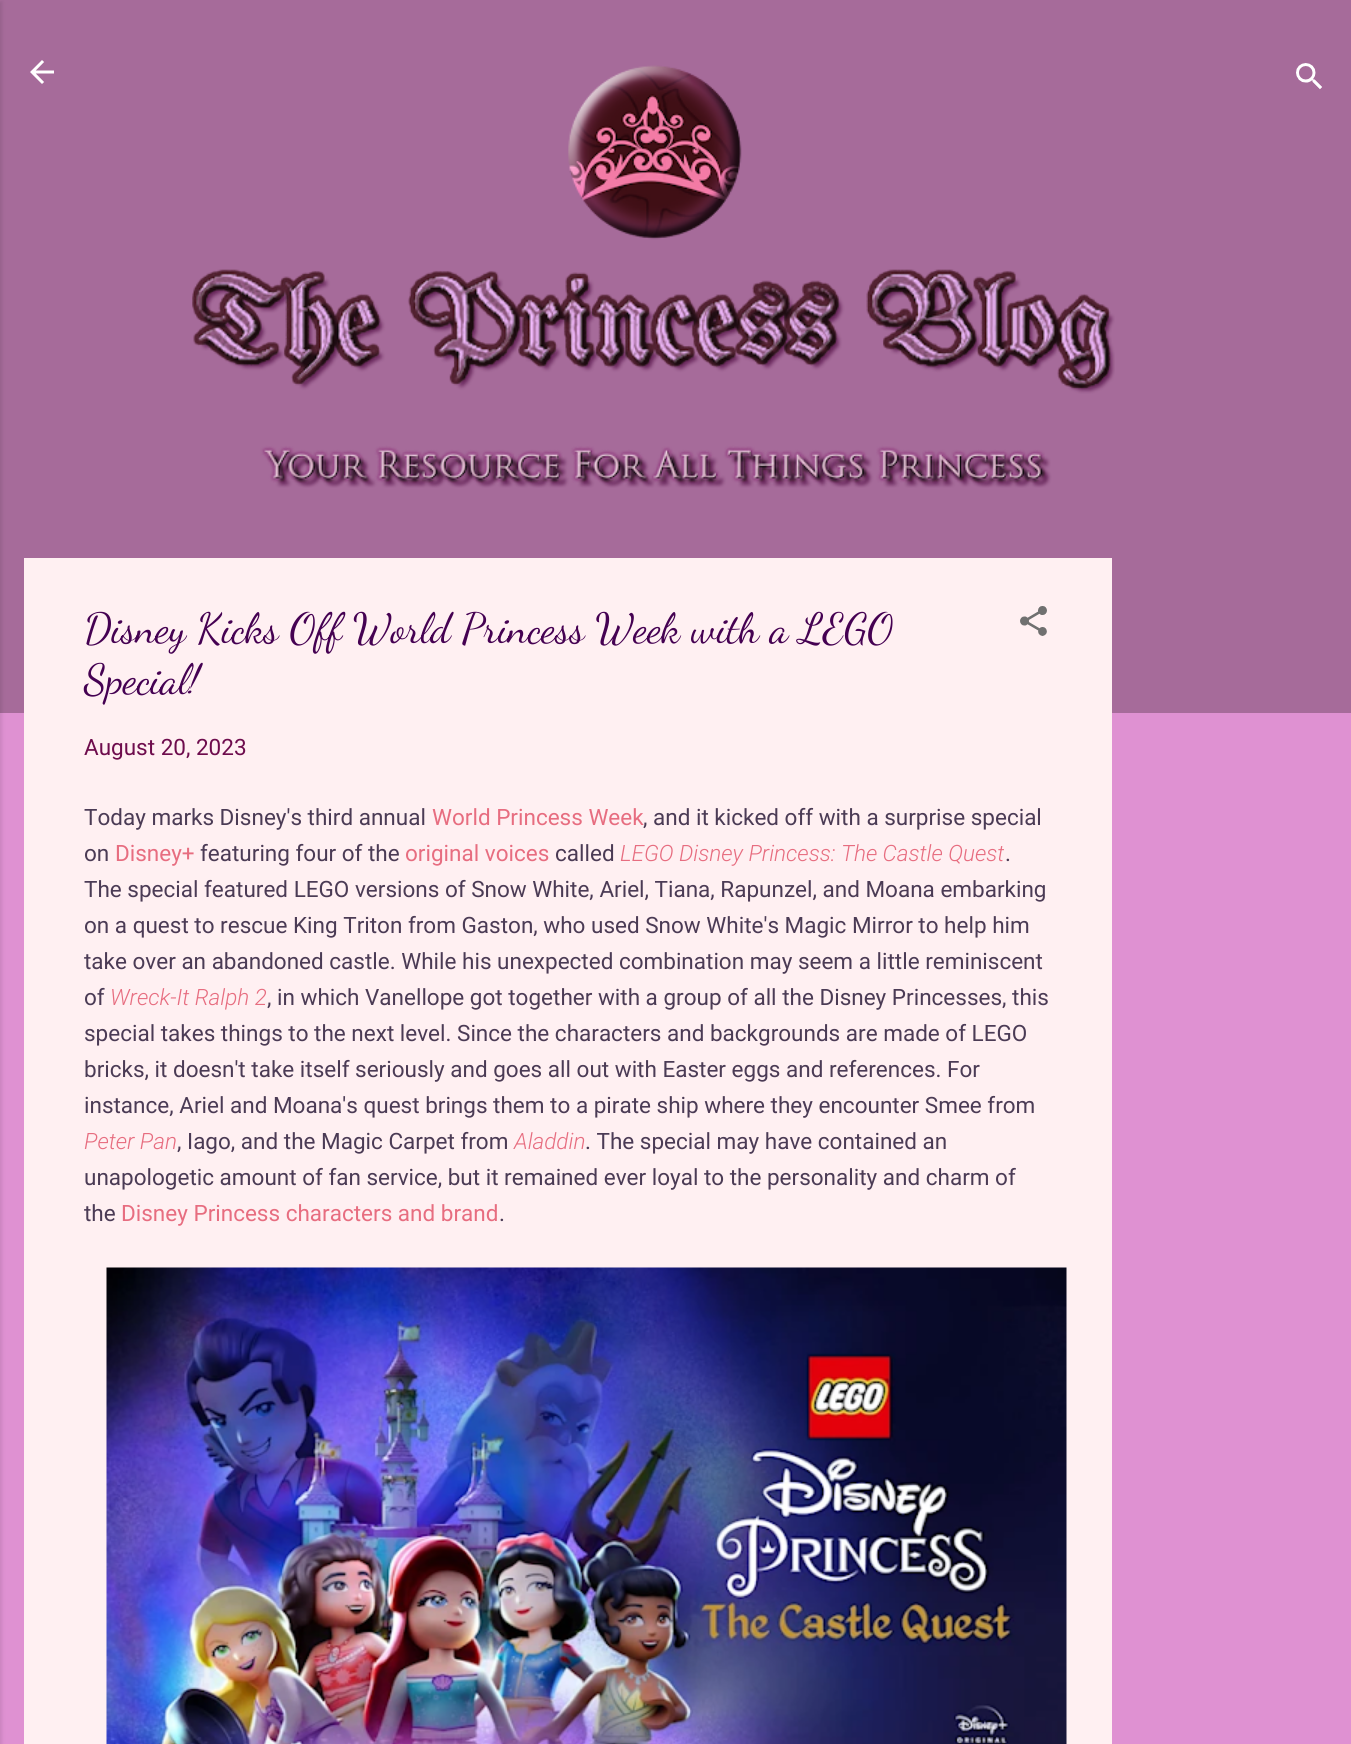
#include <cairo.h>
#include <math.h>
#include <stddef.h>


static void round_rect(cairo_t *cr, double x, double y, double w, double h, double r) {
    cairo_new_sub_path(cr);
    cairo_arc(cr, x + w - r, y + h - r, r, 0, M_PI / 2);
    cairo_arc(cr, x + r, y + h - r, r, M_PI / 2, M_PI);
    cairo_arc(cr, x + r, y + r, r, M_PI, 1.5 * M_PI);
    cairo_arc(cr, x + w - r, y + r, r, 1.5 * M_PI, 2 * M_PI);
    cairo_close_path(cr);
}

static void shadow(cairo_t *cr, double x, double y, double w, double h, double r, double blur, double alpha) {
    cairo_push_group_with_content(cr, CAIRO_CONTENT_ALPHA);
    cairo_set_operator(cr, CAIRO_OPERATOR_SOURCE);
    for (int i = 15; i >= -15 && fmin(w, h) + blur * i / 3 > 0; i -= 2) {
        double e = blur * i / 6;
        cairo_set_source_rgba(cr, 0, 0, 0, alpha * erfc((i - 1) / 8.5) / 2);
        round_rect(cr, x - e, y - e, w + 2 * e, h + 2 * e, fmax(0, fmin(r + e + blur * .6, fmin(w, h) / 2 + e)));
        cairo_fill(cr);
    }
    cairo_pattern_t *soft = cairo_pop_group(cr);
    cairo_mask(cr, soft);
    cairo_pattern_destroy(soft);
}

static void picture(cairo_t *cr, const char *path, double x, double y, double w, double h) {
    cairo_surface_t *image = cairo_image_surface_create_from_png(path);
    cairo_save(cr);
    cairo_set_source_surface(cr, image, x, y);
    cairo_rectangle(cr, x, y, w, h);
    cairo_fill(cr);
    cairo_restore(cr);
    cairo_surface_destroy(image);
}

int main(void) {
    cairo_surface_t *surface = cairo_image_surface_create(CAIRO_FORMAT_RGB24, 1351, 1744);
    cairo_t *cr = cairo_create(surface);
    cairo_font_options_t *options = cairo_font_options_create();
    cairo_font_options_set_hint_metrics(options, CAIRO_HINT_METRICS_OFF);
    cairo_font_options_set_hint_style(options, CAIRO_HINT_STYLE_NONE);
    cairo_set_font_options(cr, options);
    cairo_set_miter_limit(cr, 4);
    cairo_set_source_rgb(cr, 0.875, 0.569, 0.824);
    cairo_paint(cr);
    cairo_set_source_rgb(cr, 0.651, 0.42, 0.604);
    cairo_rectangle(cr, 0, 0, 1351, 713);
    cairo_fill(cr);
    cairo_set_source_rgb(cr, 0, 0, 0);
    shadow(cr, -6, 2, 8, 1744, 0, 2, 0.1);
    picture(cr, "img1.png", 30, 60, 24, 24);
    picture(cr, "img2.png", 192, 65, 923, 423);
    picture(cr, "img3.png", 1296, 63, 26, 27);
    cairo_set_source_rgb(cr, 1, 0.941, 0.949);
    cairo_rectangle(cr, 24, 558, 1088, 1186);
    cairo_fill(cr);
    cairo_select_font_face(cr, "Dancing Script", CAIRO_FONT_SLANT_NORMAL, CAIRO_FONT_WEIGHT_NORMAL);
    cairo_set_font_size(cr, 42);
    cairo_set_source_rgb(cr, 0.271, 0.004, 0.322);
    cairo_move_to(cr, 84, 642);
    cairo_show_text(cr, "Disney Kicks Off World Princess Week with a LEGO");
    cairo_move_to(cr, 84, 693);
    cairo_show_text(cr, "Special!");
    picture(cr, "img4.png", 1020, 606, 27, 30);
    cairo_select_font_face(cr, "Roboto", CAIRO_FONT_SLANT_NORMAL, CAIRO_FONT_WEIGHT_NORMAL);
    cairo_set_font_size(cr, 22.5);
    cairo_set_source_rgb(cr, 0.431, 0.047, 0.302);
    cairo_move_to(cr, 84, 755);
    cairo_show_text(cr, "August 20, 2023");
    cairo_set_source_rgb(cr, 0.294, 0.231, 0.333);
    cairo_move_to(cr, 84, 825);
    cairo_show_text(cr, "Today marks Disney's third annual");
    cairo_set_source_rgb(cr, 0.906, 0.427, 0.502);
    cairo_move_to(cr, 432, 825);
    cairo_show_text(cr, "World Princess Week");
    cairo_set_source_rgb(cr, 0.294, 0.231, 0.333);
    cairo_move_to(cr, 643, 825);
    cairo_show_text(cr, ", and it kicked off with a surprise special");
    cairo_move_to(cr, 84, 861);
    cairo_show_text(cr, "on");
    cairo_set_source_rgb(cr, 0.906, 0.427, 0.502);
    cairo_move_to(cr, 115, 861);
    cairo_show_text(cr, "Disney+");
    cairo_set_source_rgb(cr, 0.294, 0.231, 0.333);
    cairo_move_to(cr, 200, 861);
    cairo_show_text(cr, "featuring four of the");
    cairo_set_source_rgb(cr, 0.906, 0.427, 0.502);
    cairo_move_to(cr, 405, 861);
    cairo_show_text(cr, "original voices");
    cairo_set_source_rgb(cr, 0.294, 0.231, 0.333);
    cairo_move_to(cr, 555, 861);
    cairo_show_text(cr, "called");
    cairo_select_font_face(cr, "Roboto Light", CAIRO_FONT_SLANT_ITALIC, CAIRO_FONT_WEIGHT_NORMAL);
    cairo_set_source_rgb(cr, 0.906, 0.427, 0.502);
    cairo_move_to(cr, 620, 861);
    cairo_show_text(cr, "LEGO Disney Princess: The Castle Quest");
    cairo_select_font_face(cr, "Roboto", CAIRO_FONT_SLANT_NORMAL, CAIRO_FONT_WEIGHT_NORMAL);
    cairo_set_source_rgb(cr, 0.294, 0.231, 0.333);
    cairo_move_to(cr, 1005, 861);
    cairo_show_text(cr, ".");
    cairo_move_to(cr, 84, 897);
    cairo_show_text(cr, "The special featured LEGO versions of Snow White, Ariel, Tiana, Rapunzel, and Moana embarking");
    cairo_move_to(cr, 84, 933);
    cairo_show_text(cr, "on a quest to rescue King Triton from Gaston, who used Snow White's Magic Mirror to help him");
    cairo_move_to(cr, 84, 969);
    cairo_show_text(cr, "take over an abandoned castle. While his unexpected combination may seem a little reminiscent");
    cairo_move_to(cr, 84, 1005);
    cairo_show_text(cr, "of");
    cairo_select_font_face(cr, "Roboto Light", CAIRO_FONT_SLANT_ITALIC, CAIRO_FONT_WEIGHT_NORMAL);
    cairo_set_source_rgb(cr, 0.906, 0.427, 0.502);
    cairo_move_to(cr, 110, 1005);
    cairo_show_text(cr, "Wreck-It Ralph 2");
    cairo_select_font_face(cr, "Roboto", CAIRO_FONT_SLANT_NORMAL, CAIRO_FONT_WEIGHT_NORMAL);
    cairo_set_source_rgb(cr, 0.294, 0.231, 0.333);
    cairo_move_to(cr, 267, 1005);
    cairo_show_text(cr, ", in which Vanellope got together with a group of all the Disney Princesses, this");
    cairo_move_to(cr, 84, 1041);
    cairo_show_text(cr, "special takes things to the next level. Since the characters and backgrounds are made of LEGO");
    cairo_move_to(cr, 84, 1077);
    cairo_show_text(cr, "bricks, it doesn't take itself seriously and goes all out with Easter eggs and references. For");
    cairo_move_to(cr, 84, 1113);
    cairo_show_text(cr, "instance, Ariel and Moana's quest brings them to a pirate ship where they encounter Smee from");
    cairo_select_font_face(cr, "Roboto Light", CAIRO_FONT_SLANT_ITALIC, CAIRO_FONT_WEIGHT_NORMAL);
    cairo_set_source_rgb(cr, 0.906, 0.427, 0.502);
    cairo_move_to(cr, 84, 1149);
    cairo_show_text(cr, "Peter Pan");
    cairo_select_font_face(cr, "Roboto", CAIRO_FONT_SLANT_NORMAL, CAIRO_FONT_WEIGHT_NORMAL);
    cairo_set_source_rgb(cr, 0.294, 0.231, 0.333);
    cairo_move_to(cr, 177, 1149);
    cairo_show_text(cr, ", Iago, and the Magic Carpet from");
    cairo_select_font_face(cr, "Roboto Light", CAIRO_FONT_SLANT_ITALIC, CAIRO_FONT_WEIGHT_NORMAL);
    cairo_set_source_rgb(cr, 0.906, 0.427, 0.502);
    cairo_move_to(cr, 514, 1149);
    cairo_show_text(cr, "Aladdin");
    cairo_select_font_face(cr, "Roboto", CAIRO_FONT_SLANT_NORMAL, CAIRO_FONT_WEIGHT_NORMAL);
    cairo_set_source_rgb(cr, 0.294, 0.231, 0.333);
    cairo_move_to(cr, 585, 1149);
    cairo_show_text(cr, ". The special may have contained an");
    cairo_move_to(cr, 84, 1185);
    cairo_show_text(cr, "unapologetic amount of fan service, but it remained ever loyal to the personality and charm of");
    cairo_move_to(cr, 84, 1221);
    cairo_show_text(cr, "the");
    cairo_set_source_rgb(cr, 0.906, 0.427, 0.502);
    cairo_move_to(cr, 121, 1221);
    cairo_show_text(cr, "Disney Princess characters and brand");
    cairo_set_source_rgb(cr, 0.294, 0.231, 0.333);
    cairo_move_to(cr, 499, 1221);
    cairo_show_text(cr, ".");
    picture(cr, "img5.png", 106, 1267, 961, 477);
    cairo_surface_write_to_png(surface, "page.png");
    cairo_font_options_destroy(options);
    cairo_destroy(cr);
    cairo_surface_destroy(surface);
    return 0;
}
